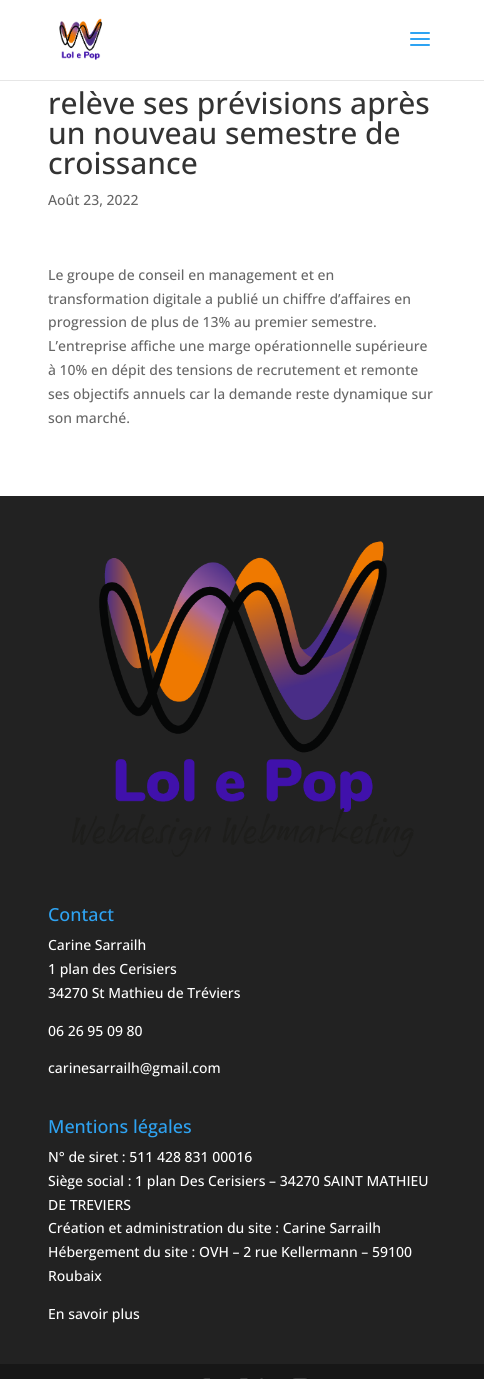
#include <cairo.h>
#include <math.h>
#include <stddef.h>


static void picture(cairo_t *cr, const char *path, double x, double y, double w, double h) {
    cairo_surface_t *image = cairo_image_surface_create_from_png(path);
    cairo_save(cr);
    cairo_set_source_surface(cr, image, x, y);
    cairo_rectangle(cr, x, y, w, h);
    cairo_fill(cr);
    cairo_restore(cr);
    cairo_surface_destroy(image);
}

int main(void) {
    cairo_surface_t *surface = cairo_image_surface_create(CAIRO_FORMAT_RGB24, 484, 1379);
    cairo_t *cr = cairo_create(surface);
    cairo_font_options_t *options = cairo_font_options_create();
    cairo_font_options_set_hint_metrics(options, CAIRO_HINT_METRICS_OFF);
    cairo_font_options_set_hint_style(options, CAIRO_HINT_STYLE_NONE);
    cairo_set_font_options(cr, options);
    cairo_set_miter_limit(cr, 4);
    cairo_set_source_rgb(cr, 1, 1, 1);
    cairo_paint(cr);
    cairo_set_source_rgba(cr, 0, 0, 0, 0.1);
    cairo_rectangle(cr, 0, 80, 484, 1);
    cairo_fill(cr);
    picture(cr, "img1.png", 59, 18, 44, 42);
    picture(cr, "img2.png", 410, 32, 20, 14);
    cairo_select_font_face(cr, "Open Sans Medium", CAIRO_FONT_SLANT_NORMAL, CAIRO_FONT_WEIGHT_NORMAL);
    cairo_set_font_size(cr, 30);
    cairo_set_source_rgb(cr, 0.2, 0.2, 0.2);
    cairo_move_to(cr, 48, 114);
    cairo_show_text(cr, "relève ses prévisions après");
    cairo_move_to(cr, 48, 144);
    cairo_show_text(cr, "un nouveau semestre de");
    cairo_move_to(cr, 48, 174);
    cairo_show_text(cr, "croissance");
    cairo_set_font_size(cr, 14);
    cairo_set_source_rgb(cr, 0.4, 0.4, 0.4);
    cairo_move_to(cr, 48, 205);
    cairo_show_text(cr, "Août 23, 2022");
    cairo_move_to(cr, 48, 280);
    cairo_show_text(cr, "Le groupe de conseil en management et en");
    cairo_move_to(cr, 48, 304);
    cairo_show_text(cr, "transformation digitale a publié un chiffre d’affaires en");
    cairo_move_to(cr, 48, 327);
    cairo_show_text(cr, "progression de plus de 13% au premier semestre.");
    cairo_move_to(cr, 48, 351);
    cairo_show_text(cr, "L’entreprise affiche une marge opérationnelle supérieure");
    cairo_move_to(cr, 48, 375);
    cairo_show_text(cr, "à 10% en dépit des tensions de recrutement et remonte");
    cairo_move_to(cr, 48, 399);
    cairo_show_text(cr, "ses objectifs annuels car la demande reste dynamique sur");
    cairo_move_to(cr, 48, 423);
    cairo_show_text(cr, "son marché.");
    cairo_set_source_rgb(cr, 0.133, 0.133, 0.133);
    cairo_rectangle(cr, 0, 496, 484, 868);
    cairo_fill(cr);
    picture(cr, "img3.png", 72, 541, 342, 316);
    cairo_set_font_size(cr, 18);
    cairo_set_source_rgb(cr, 0.18, 0.639, 0.949);
    cairo_move_to(cr, 48, 921);
    cairo_show_text(cr, "Contact");
    cairo_set_font_size(cr, 14);
    cairo_set_source_rgb(cr, 1, 1, 1);
    cairo_move_to(cr, 48, 950);
    cairo_show_text(cr, "Carine Sarrailh");
    cairo_move_to(cr, 48, 974);
    cairo_show_text(cr, "1 plan des Cerisiers");
    cairo_move_to(cr, 48, 998);
    cairo_show_text(cr, "34270 St Mathieu de Tréviers");
    cairo_move_to(cr, 48, 1036);
    cairo_show_text(cr, "06 26 95 09 80");
    cairo_move_to(cr, 48, 1073);
    cairo_show_text(cr, "carinesarrailh@gmail.com");
    cairo_set_font_size(cr, 18);
    cairo_set_source_rgb(cr, 0.18, 0.639, 0.949);
    cairo_move_to(cr, 48, 1133);
    cairo_show_text(cr, "Mentions légales");
    cairo_set_font_size(cr, 14);
    cairo_set_source_rgb(cr, 1, 1, 1);
    cairo_move_to(cr, 48, 1162);
    cairo_show_text(cr, "N° de siret : 511 428 831 00016");
    cairo_move_to(cr, 48, 1186);
    cairo_show_text(cr, "Siège social : 1 plan Des Cerisiers – 34270 SAINT MATHIEU");
    cairo_move_to(cr, 48, 1210);
    cairo_show_text(cr, "DE TREVIERS");
    cairo_move_to(cr, 48, 1233);
    cairo_show_text(cr, "Création et administration du site : Carine Sarrailh");
    cairo_move_to(cr, 48, 1257);
    cairo_show_text(cr, "Hébergement du site : OVH – 2 rue Kellermann – 59100");
    cairo_move_to(cr, 48, 1281);
    cairo_show_text(cr, "Roubaix");
    cairo_move_to(cr, 48, 1319);
    cairo_show_text(cr, "En savoir plus");
    cairo_set_source_rgb(cr, 0.09, 0.09, 0.09);
    cairo_rectangle(cr, 0, 1364, 484, 15);
    cairo_fill(cr);
    picture(cr, "img4.png", 203, 1378, 7, 1);
    picture(cr, "img5.png", 240, 1378, 23, 1);
    picture(cr, "img6.png", 293, 1378, 14, 1);
    cairo_surface_write_to_png(surface, "page.png");
    cairo_font_options_destroy(options);
    cairo_destroy(cr);
    cairo_surface_destroy(surface);
    return 0;
}
